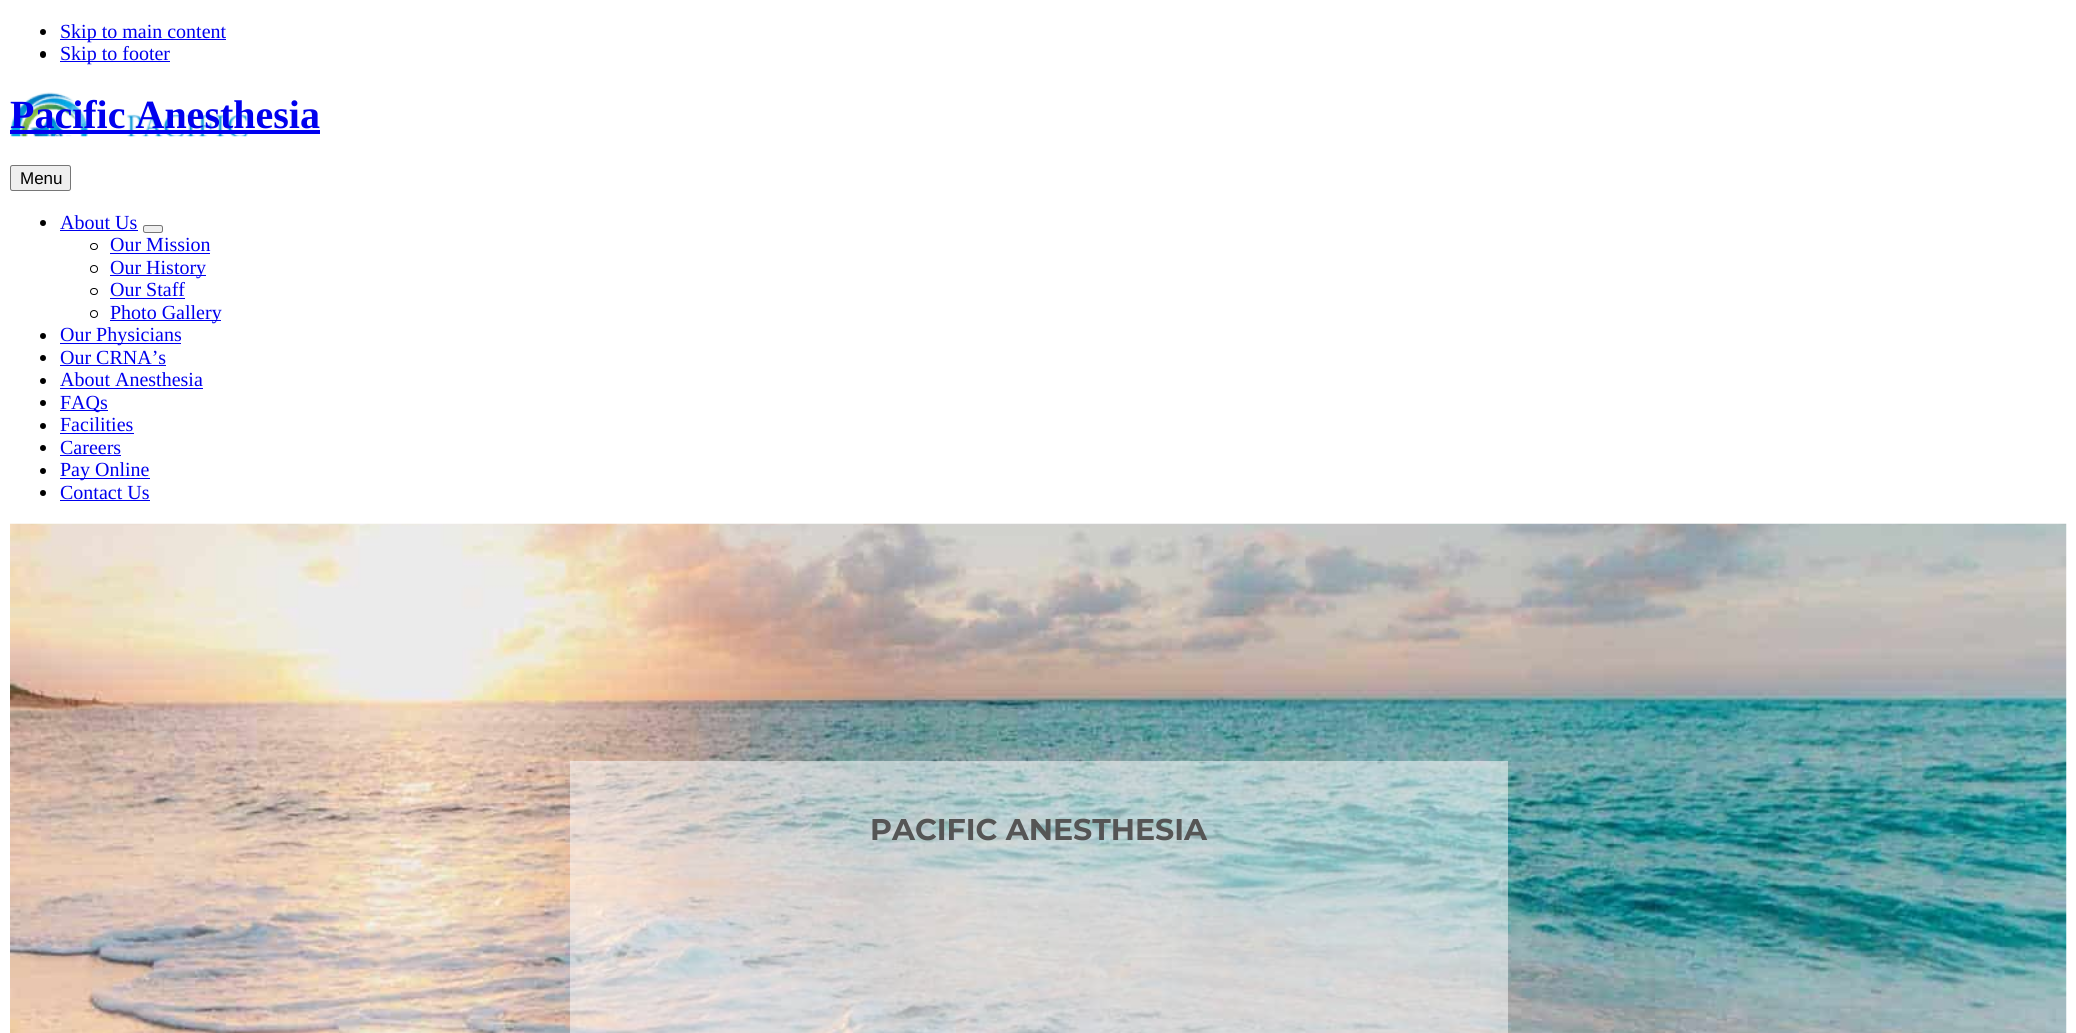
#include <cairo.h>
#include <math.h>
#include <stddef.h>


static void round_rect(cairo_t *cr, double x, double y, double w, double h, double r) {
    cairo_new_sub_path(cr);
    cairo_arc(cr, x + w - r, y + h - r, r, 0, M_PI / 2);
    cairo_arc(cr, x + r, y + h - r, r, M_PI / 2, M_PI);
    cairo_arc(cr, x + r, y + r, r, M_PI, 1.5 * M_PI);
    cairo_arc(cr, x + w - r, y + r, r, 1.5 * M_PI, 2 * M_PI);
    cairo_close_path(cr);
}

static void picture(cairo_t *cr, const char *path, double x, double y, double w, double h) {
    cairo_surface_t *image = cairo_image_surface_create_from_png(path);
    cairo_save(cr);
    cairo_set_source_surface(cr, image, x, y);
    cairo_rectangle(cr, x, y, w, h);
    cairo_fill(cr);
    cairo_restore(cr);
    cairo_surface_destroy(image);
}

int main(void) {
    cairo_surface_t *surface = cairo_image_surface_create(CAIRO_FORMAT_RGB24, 2076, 1033);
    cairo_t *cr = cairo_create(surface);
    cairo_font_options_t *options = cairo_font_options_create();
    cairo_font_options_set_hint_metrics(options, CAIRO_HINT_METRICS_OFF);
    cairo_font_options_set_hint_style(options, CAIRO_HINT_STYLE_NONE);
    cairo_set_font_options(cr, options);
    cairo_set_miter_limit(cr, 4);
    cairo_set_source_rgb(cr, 1, 1, 1);
    cairo_paint(cr);
    cairo_set_source_rgb(cr, 0, 0, 0);
    cairo_arc(cr, 43, 32, 3, 0, 2 * M_PI);
    cairo_fill(cr);
    cairo_set_source_rgb(cr, 0, 0, 0.933);
    cairo_rectangle(cr, 60, 39, 166, 1);
    cairo_fill(cr);
    cairo_select_font_face(cr, "Liberation Serif", CAIRO_FONT_SLANT_NORMAL, CAIRO_FONT_WEIGHT_NORMAL);
    cairo_set_font_size(cr, 20);
    cairo_move_to(cr, 60, 38);
    cairo_show_text(cr, "Skip to main content");
    cairo_set_source_rgb(cr, 0, 0, 0);
    round_rect(cr, 40, 51, 6, 7, 3);
    cairo_fill(cr);
    cairo_set_source_rgb(cr, 0, 0, 0.933);
    cairo_rectangle(cr, 60, 61, 110, 1);
    cairo_fill(cr);
    cairo_move_to(cr, 60, 60);
    cairo_show_text(cr, "Skip to footer");
    picture(cr, "img1.png", 10, 92, 238, 45);
    cairo_select_font_face(cr, "Liberation Serif", CAIRO_FONT_SLANT_NORMAL, CAIRO_FONT_WEIGHT_BOLD);
    cairo_set_font_size(cr, 40);
    cairo_move_to(cr, 10, 128);
    cairo_show_text(cr, "Pacific Anesthesia");
    cairo_rectangle(cr, 10, 130, 310, 4);
    cairo_fill(cr);
    cairo_set_source_rgb(cr, 0.937, 0.937, 0.937);
    round_rect(cr, 10.5, 165.5, 60, 25, 2);
    cairo_fill_preserve(cr);
    cairo_set_source_rgb(cr, 0.463, 0.463, 0.463);
    cairo_set_line_width(cr, 1);
    cairo_stroke(cr);
    cairo_select_font_face(cr, "Liberation Sans", CAIRO_FONT_SLANT_NORMAL, CAIRO_FONT_WEIGHT_NORMAL);
    cairo_set_font_size(cr, 17);
    cairo_set_source_rgb(cr, 0, 0, 0);
    cairo_move_to(cr, 20, 184);
    cairo_show_text(cr, "Menu");
    cairo_new_path(cr);
    cairo_arc(cr, 43, 223, 3, 0, 2 * M_PI);
    cairo_fill(cr);
    cairo_select_font_face(cr, "Liberation Serif", CAIRO_FONT_SLANT_NORMAL, CAIRO_FONT_WEIGHT_NORMAL);
    cairo_set_font_size(cr, 20);
    cairo_set_source_rgb(cr, 0, 0, 0.933);
    cairo_move_to(cr, 60, 229);
    cairo_show_text(cr, "About Us");
    cairo_rectangle(cr, 60, 230, 78, 1);
    cairo_fill(cr);
    cairo_set_source_rgb(cr, 0.937, 0.937, 0.937);
    round_rect(cr, 143.5, 225.5, 19, 7, 2);
    cairo_fill_preserve(cr);
    cairo_set_source_rgb(cr, 0.463, 0.463, 0.463);
    cairo_stroke(cr);
    round_rect(cr, 90.5, 243.5, 7, 6, 3);
    cairo_set_source_rgb(cr, 0, 0, 0);
    cairo_stroke(cr);
    cairo_set_source_rgb(cr, 0, 0, 0.933);
    cairo_move_to(cr, 110, 251);
    cairo_show_text(cr, "Our Mission");
    cairo_rectangle(cr, 110, 253, 100, 1);
    cairo_fill(cr);
    cairo_arc(cr, 94, 269, 3.5, 0, 2 * M_PI);
    cairo_set_source_rgb(cr, 0, 0, 0);
    cairo_stroke(cr);
    cairo_set_source_rgb(cr, 0, 0, 0.933);
    cairo_rectangle(cr, 110, 275, 96, 1);
    cairo_fill(cr);
    cairo_move_to(cr, 110, 274);
    cairo_show_text(cr, "Our History");
    round_rect(cr, 90.5, 288.5, 7, 6, 3);
    cairo_set_source_rgb(cr, 0, 0, 0);
    cairo_stroke(cr);
    cairo_set_source_rgb(cr, 0, 0, 0.933);
    cairo_move_to(cr, 110, 296);
    cairo_show_text(cr, "Our Staff");
    cairo_rectangle(cr, 110, 298, 75, 1);
    cairo_fill(cr);
    cairo_arc(cr, 94, 314, 3.5, 0, 2 * M_PI);
    cairo_set_source_rgb(cr, 0, 0, 0);
    cairo_stroke(cr);
    cairo_set_source_rgb(cr, 0, 0, 0.933);
    cairo_rectangle(cr, 110, 320, 111, 1);
    cairo_fill(cr);
    cairo_move_to(cr, 110, 319);
    cairo_show_text(cr, "Photo Gallery");
    cairo_set_source_rgb(cr, 0, 0, 0);
    cairo_new_path(cr);
    cairo_arc(cr, 43, 336, 3, 0, 2 * M_PI);
    cairo_fill(cr);
    cairo_set_source_rgb(cr, 0, 0, 0.933);
    cairo_rectangle(cr, 60, 343, 121, 1);
    cairo_fill(cr);
    cairo_move_to(cr, 60, 341);
    cairo_show_text(cr, "Our Physicians");
    cairo_set_source_rgb(cr, 0, 0, 0);
    cairo_new_path(cr);
    cairo_arc(cr, 43, 358, 3, 0, 2 * M_PI);
    cairo_fill(cr);
    cairo_set_source_rgb(cr, 0, 0, 0.933);
    cairo_move_to(cr, 60, 364);
    cairo_show_text(cr, "Our CRNA’s");
    cairo_rectangle(cr, 60, 365, 106, 1);
    cairo_fill(cr);
    cairo_set_source_rgb(cr, 0, 0, 0);
    cairo_arc(cr, 43, 381, 3, 0, 2 * M_PI);
    cairo_fill(cr);
    cairo_set_source_rgb(cr, 0, 0, 0.933);
    cairo_move_to(cr, 60, 386);
    cairo_show_text(cr, "About Anesthesia");
    cairo_rectangle(cr, 60, 388, 143, 1);
    cairo_fill(cr);
    cairo_set_source_rgb(cr, 0, 0, 0);
    cairo_arc(cr, 43, 403, 3, 0, 2 * M_PI);
    cairo_fill(cr);
    cairo_set_source_rgb(cr, 0, 0, 0.933);
    cairo_rectangle(cr, 60, 410, 48, 1);
    cairo_fill(cr);
    cairo_move_to(cr, 60, 409);
    cairo_show_text(cr, "FAQs");
    cairo_set_source_rgb(cr, 0, 0, 0);
    cairo_new_path(cr);
    cairo_arc(cr, 43, 426, 3, 0, 2 * M_PI);
    cairo_fill(cr);
    cairo_set_source_rgb(cr, 0, 0, 0.933);
    cairo_move_to(cr, 60, 431);
    cairo_show_text(cr, "Facilities");
    cairo_rectangle(cr, 60, 433, 74, 1);
    cairo_fill(cr);
    cairo_set_source_rgb(cr, 0, 0, 0);
    cairo_arc(cr, 43, 448, 3, 0, 2 * M_PI);
    cairo_fill(cr);
    cairo_set_source_rgb(cr, 0, 0, 0.933);
    cairo_move_to(cr, 60, 454);
    cairo_show_text(cr, "Careers");
    cairo_rectangle(cr, 60, 455, 61, 1);
    cairo_fill(cr);
    cairo_set_source_rgb(cr, 0, 0, 0);
    cairo_arc(cr, 43, 471, 3, 0, 2 * M_PI);
    cairo_fill(cr);
    cairo_set_source_rgb(cr, 0, 0, 0.933);
    cairo_rectangle(cr, 60, 478, 90, 1);
    cairo_fill(cr);
    cairo_move_to(cr, 60, 476);
    cairo_show_text(cr, "Pay Online");
    cairo_set_source_rgb(cr, 0, 0, 0);
    cairo_new_path(cr);
    cairo_arc(cr, 43, 493, 3, 0, 2 * M_PI);
    cairo_fill(cr);
    cairo_set_source_rgb(cr, 0, 0, 0.933);
    cairo_move_to(cr, 60, 499);
    cairo_show_text(cr, "Contact Us");
    cairo_rectangle(cr, 60, 500, 90, 1);
    cairo_fill(cr);
    picture(cr, "img2.png", 10, 523, 2057, 510);
    cairo_set_source_rgba(cr, 1, 1, 1, 0.51);
    cairo_rectangle(cr, 570, 761, 938, 272);
    cairo_fill(cr);
    cairo_select_font_face(cr, "Montserrat Thin", CAIRO_FONT_SLANT_NORMAL, CAIRO_FONT_WEIGHT_NORMAL);
    cairo_set_font_size(cr, 30);
    cairo_set_source_rgb(cr, 0.333, 0.333, 0.333);
    cairo_move_to(cr, 870, 840);
    cairo_show_text(cr, "PACIFIC ANESTHESIA");
    cairo_surface_write_to_png(surface, "page.png");
    cairo_font_options_destroy(options);
    cairo_destroy(cr);
    cairo_surface_destroy(surface);
    return 0;
}
